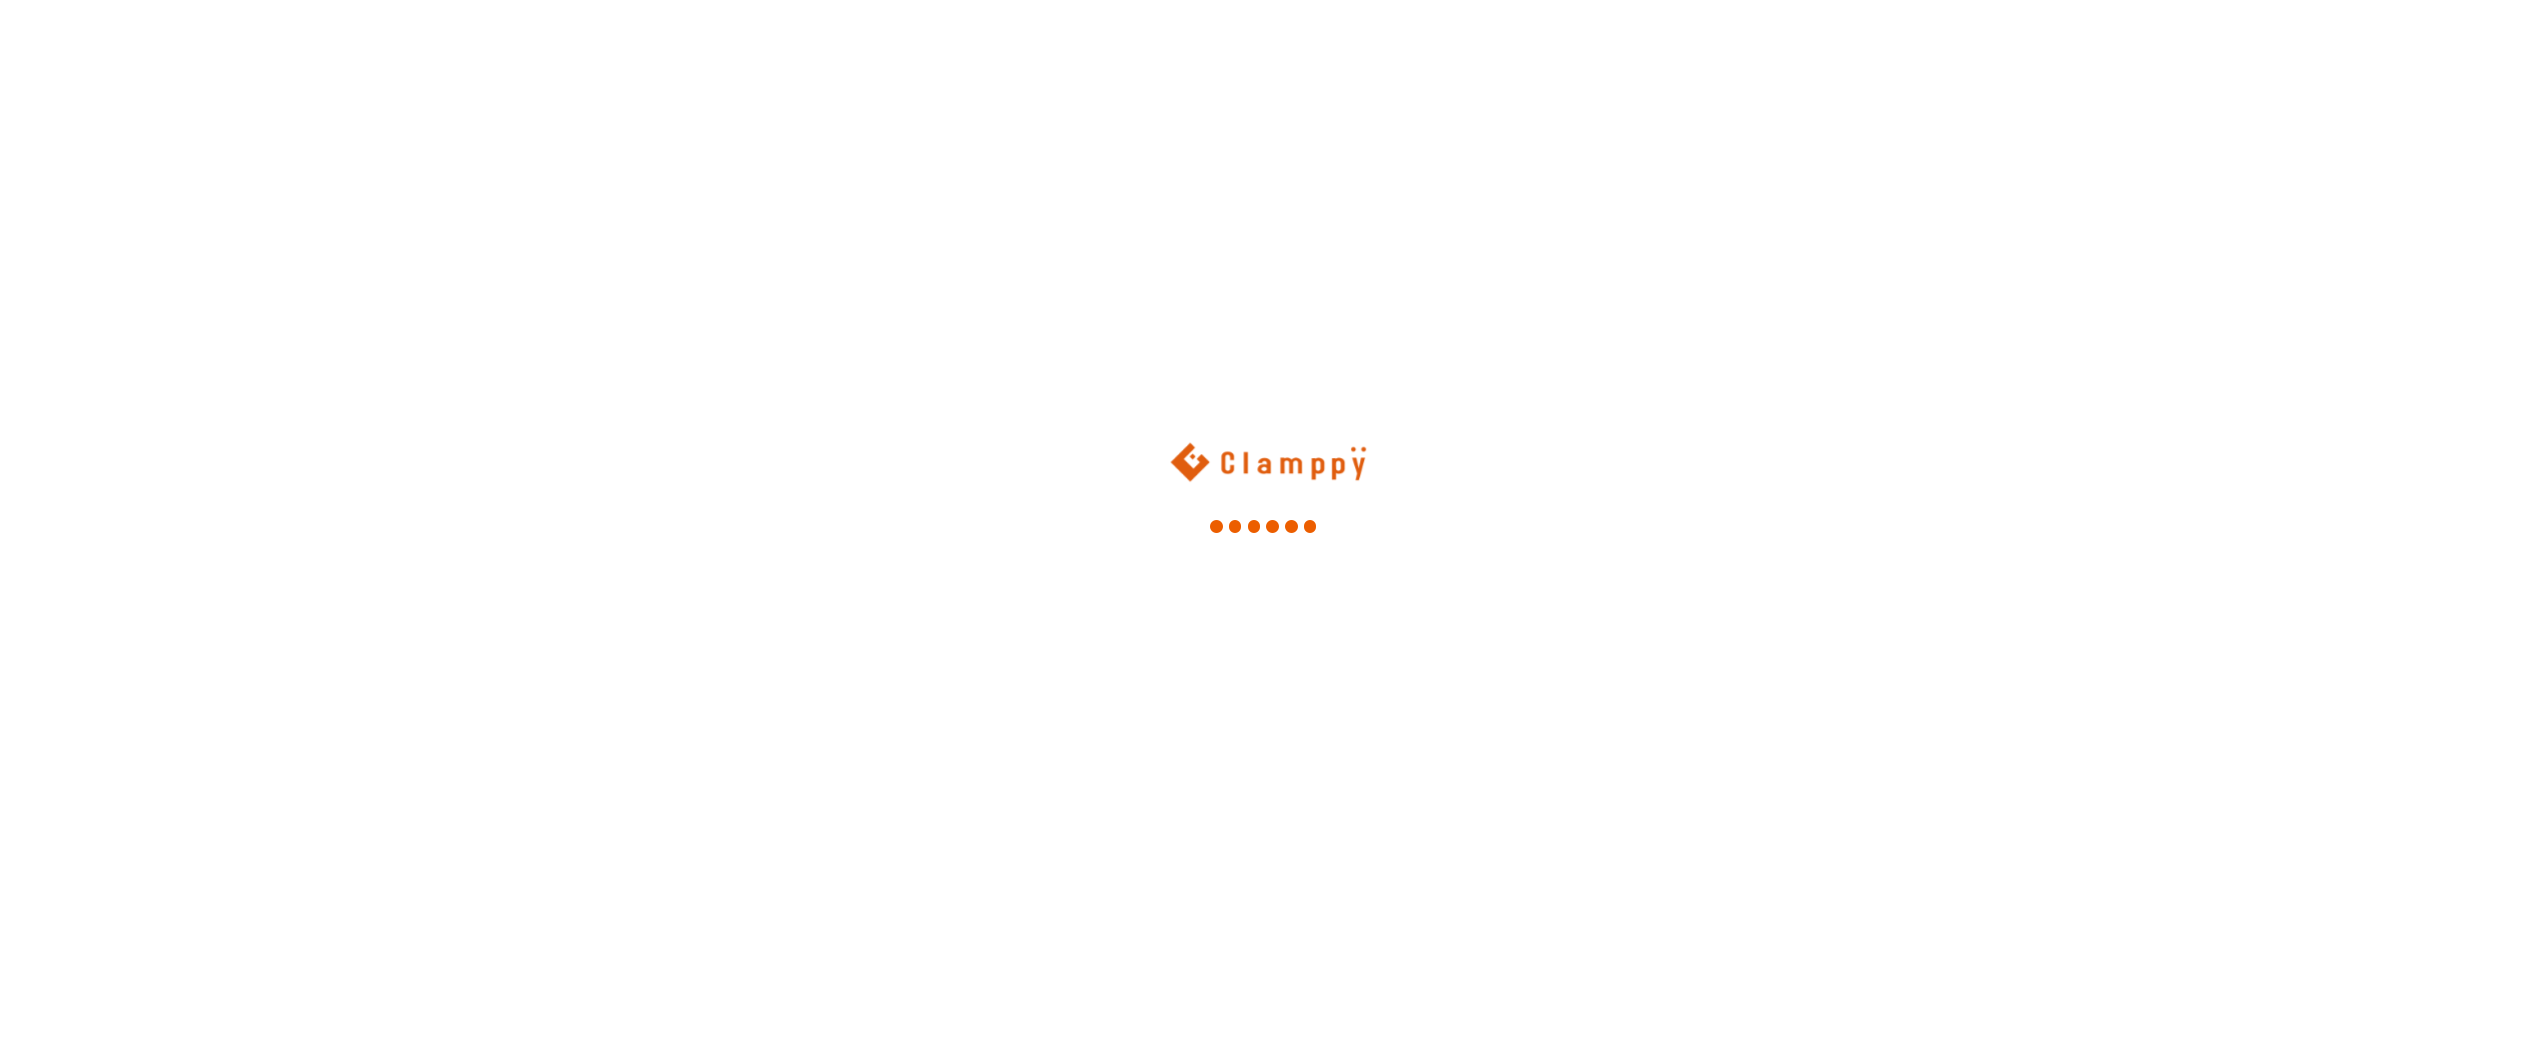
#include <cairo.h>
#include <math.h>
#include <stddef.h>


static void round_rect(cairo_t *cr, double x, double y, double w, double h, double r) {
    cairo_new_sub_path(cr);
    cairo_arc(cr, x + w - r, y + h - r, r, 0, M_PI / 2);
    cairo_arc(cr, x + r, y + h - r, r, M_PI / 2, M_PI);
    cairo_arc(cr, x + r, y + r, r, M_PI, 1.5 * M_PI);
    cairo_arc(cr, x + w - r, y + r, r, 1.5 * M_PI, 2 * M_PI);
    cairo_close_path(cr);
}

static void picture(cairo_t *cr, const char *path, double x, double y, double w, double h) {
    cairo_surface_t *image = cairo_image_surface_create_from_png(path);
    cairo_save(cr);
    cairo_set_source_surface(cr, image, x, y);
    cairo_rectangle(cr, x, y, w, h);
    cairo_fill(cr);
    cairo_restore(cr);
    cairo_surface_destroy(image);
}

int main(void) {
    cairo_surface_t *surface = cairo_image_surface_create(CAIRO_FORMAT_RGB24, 2533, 1051);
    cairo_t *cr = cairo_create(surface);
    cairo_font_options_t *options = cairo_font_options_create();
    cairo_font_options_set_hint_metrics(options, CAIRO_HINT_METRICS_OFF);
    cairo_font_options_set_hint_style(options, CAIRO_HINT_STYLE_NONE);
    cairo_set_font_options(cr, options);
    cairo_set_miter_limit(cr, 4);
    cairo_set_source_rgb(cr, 1, 1, 1);
    cairo_paint(cr);
    picture(cr, "img1.png", 1170, 442, 197, 41);
    cairo_set_source_rgb(cr, 0.925, 0.369, 0);
    cairo_arc(cr, 1216.5, 526.5, 6.5, 0, 2 * M_PI);
    cairo_fill(cr);
    round_rect(cr, 1229, 520, 12, 13, 6);
    cairo_fill(cr);
    round_rect(cr, 1248, 520, 12, 13, 6);
    cairo_fill(cr);
    cairo_arc(cr, 1272.5, 526.5, 6.5, 0, 2 * M_PI);
    cairo_fill(cr);
    cairo_arc(cr, 1291.5, 526.5, 6.5, 0, 2 * M_PI);
    cairo_fill(cr);
    round_rect(cr, 1304, 520, 12, 13, 6);
    cairo_fill(cr);
    cairo_surface_write_to_png(surface, "page.png");
    cairo_font_options_destroy(options);
    cairo_destroy(cr);
    cairo_surface_destroy(surface);
    return 0;
}
